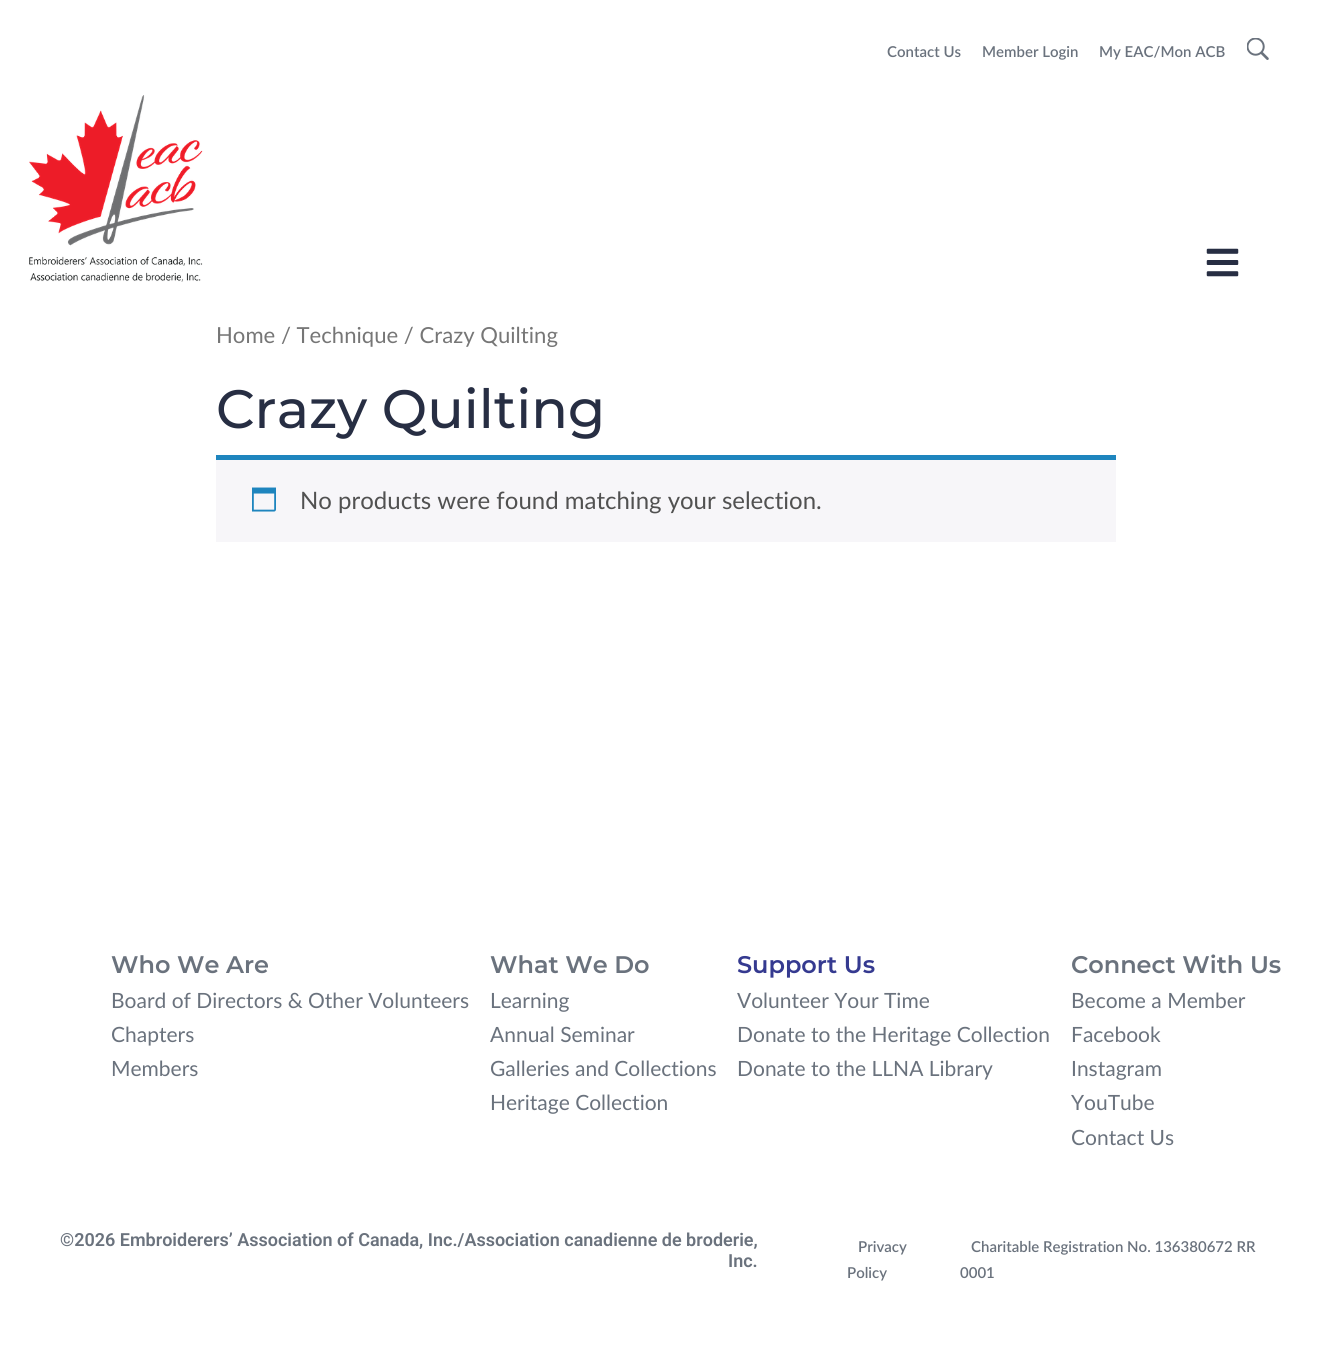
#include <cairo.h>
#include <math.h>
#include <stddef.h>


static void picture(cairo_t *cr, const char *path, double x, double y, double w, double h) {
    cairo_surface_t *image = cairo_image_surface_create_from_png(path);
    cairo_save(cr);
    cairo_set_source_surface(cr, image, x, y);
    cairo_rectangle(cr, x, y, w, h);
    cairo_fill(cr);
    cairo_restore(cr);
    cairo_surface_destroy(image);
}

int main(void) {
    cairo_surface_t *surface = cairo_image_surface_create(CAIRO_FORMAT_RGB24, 1332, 1345);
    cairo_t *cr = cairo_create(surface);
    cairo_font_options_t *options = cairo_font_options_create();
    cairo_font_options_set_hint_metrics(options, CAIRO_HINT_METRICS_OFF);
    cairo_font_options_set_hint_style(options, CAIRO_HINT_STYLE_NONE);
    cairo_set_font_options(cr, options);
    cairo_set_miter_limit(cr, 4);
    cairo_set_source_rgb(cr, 1, 1, 1);
    cairo_paint(cr);
    cairo_select_font_face(cr, "Lato SemiBold", CAIRO_FONT_SLANT_NORMAL, CAIRO_FONT_WEIGHT_NORMAL);
    cairo_set_font_size(cr, 15);
    cairo_set_source_rgb(cr, 0.416, 0.447, 0.49);
    cairo_move_to(cr, 887, 57);
    cairo_show_text(cr, "Contact Us");
    cairo_move_to(cr, 982, 57);
    cairo_show_text(cr, "Member Login");
    cairo_move_to(cr, 1099, 57);
    cairo_show_text(cr, "My EAC/Mon ACB");
    picture(cr, "img1.png", 1247, 38, 22, 22);
    picture(cr, "img2.png", 29, 95, 174, 187);
    picture(cr, "img3.png", 1206, 248, 33, 29);
    cairo_select_font_face(cr, "Lato", CAIRO_FONT_SLANT_NORMAL, CAIRO_FONT_WEIGHT_NORMAL);
    cairo_set_font_size(cr, 22.1);
    cairo_set_source_rgb(cr, 0.463, 0.463, 0.463);
    cairo_move_to(cr, 216, 343);
    cairo_show_text(cr, "Home / Technique / Crazy Quilting");
    cairo_select_font_face(cr, "Montserrat Medium", CAIRO_FONT_SLANT_NORMAL, CAIRO_FONT_WEIGHT_NORMAL);
    cairo_set_font_size(cr, 54);
    cairo_set_source_rgb(cr, 0.153, 0.18, 0.263);
    cairo_move_to(cr, 216, 428);
    cairo_show_text(cr, "Crazy Quilting");
    cairo_set_source_rgb(cr, 0.965, 0.961, 0.973);
    cairo_rectangle(cr, 216, 460, 900, 82);
    cairo_fill(cr);
    cairo_set_source_rgb(cr, 0.118, 0.522, 0.745);
    cairo_rectangle(cr, 216, 455, 900, 5);
    cairo_fill(cr);
    picture(cr, "img4.png", 252, 487, 24, 25);
    cairo_select_font_face(cr, "Lato", CAIRO_FONT_SLANT_NORMAL, CAIRO_FONT_WEIGHT_NORMAL);
    cairo_set_font_size(cr, 24);
    cairo_set_source_rgb(cr, 0.318, 0.318, 0.318);
    cairo_move_to(cr, 300, 509);
    cairo_show_text(cr, "No products were found matching your selection.");
    cairo_select_font_face(cr, "Montserrat SemiBold", CAIRO_FONT_SLANT_NORMAL, CAIRO_FONT_WEIGHT_NORMAL);
    cairo_set_source_rgb(cr, 0.416, 0.447, 0.49);
    cairo_move_to(cr, 111, 973);
    cairo_show_text(cr, "Who We Are");
    cairo_select_font_face(cr, "Lato", CAIRO_FONT_SLANT_NORMAL, CAIRO_FONT_WEIGHT_NORMAL);
    cairo_set_font_size(cr, 21);
    cairo_move_to(cr, 111, 1008);
    cairo_show_text(cr, "Board of Directors & Other Volunteers");
    cairo_move_to(cr, 111, 1042);
    cairo_show_text(cr, "Chapters");
    cairo_move_to(cr, 111, 1076);
    cairo_show_text(cr, "Members");
    cairo_select_font_face(cr, "Montserrat SemiBold", CAIRO_FONT_SLANT_NORMAL, CAIRO_FONT_WEIGHT_NORMAL);
    cairo_set_font_size(cr, 24);
    cairo_move_to(cr, 490, 973);
    cairo_show_text(cr, "What We Do");
    cairo_select_font_face(cr, "Lato", CAIRO_FONT_SLANT_NORMAL, CAIRO_FONT_WEIGHT_NORMAL);
    cairo_set_font_size(cr, 21);
    cairo_move_to(cr, 490, 1008);
    cairo_show_text(cr, "Learning");
    cairo_move_to(cr, 490, 1042);
    cairo_show_text(cr, "Annual Seminar");
    cairo_move_to(cr, 490, 1076);
    cairo_show_text(cr, "Galleries and Collections");
    cairo_move_to(cr, 490, 1110);
    cairo_show_text(cr, "Heritage Collection");
    cairo_select_font_face(cr, "Montserrat SemiBold", CAIRO_FONT_SLANT_NORMAL, CAIRO_FONT_WEIGHT_NORMAL);
    cairo_set_font_size(cr, 24);
    cairo_set_source_rgb(cr, 0.208, 0.227, 0.565);
    cairo_move_to(cr, 737, 973);
    cairo_show_text(cr, "Support Us");
    cairo_select_font_face(cr, "Lato", CAIRO_FONT_SLANT_NORMAL, CAIRO_FONT_WEIGHT_NORMAL);
    cairo_set_font_size(cr, 21);
    cairo_set_source_rgb(cr, 0.416, 0.447, 0.49);
    cairo_move_to(cr, 737, 1008);
    cairo_show_text(cr, "Volunteer Your Time");
    cairo_move_to(cr, 737, 1042);
    cairo_show_text(cr, "Donate to the Heritage Collection");
    cairo_move_to(cr, 737, 1076);
    cairo_show_text(cr, "Donate to the LLNA Library");
    cairo_select_font_face(cr, "Montserrat SemiBold", CAIRO_FONT_SLANT_NORMAL, CAIRO_FONT_WEIGHT_NORMAL);
    cairo_set_font_size(cr, 24);
    cairo_move_to(cr, 1071, 973);
    cairo_show_text(cr, "Connect With Us");
    cairo_select_font_face(cr, "Lato", CAIRO_FONT_SLANT_NORMAL, CAIRO_FONT_WEIGHT_NORMAL);
    cairo_set_font_size(cr, 21);
    cairo_move_to(cr, 1071, 1008);
    cairo_show_text(cr, "Become a Member");
    cairo_move_to(cr, 1071, 1042);
    cairo_show_text(cr, "Facebook");
    cairo_move_to(cr, 1071, 1076);
    cairo_show_text(cr, "Instagram");
    cairo_move_to(cr, 1071, 1110);
    cairo_show_text(cr, "YouTube");
    cairo_move_to(cr, 1071, 1145);
    cairo_show_text(cr, "Contact Us");
    cairo_select_font_face(cr, "Roboto SemiBold", CAIRO_FONT_SLANT_NORMAL, CAIRO_FONT_WEIGHT_NORMAL);
    cairo_set_font_size(cr, 18);
    cairo_move_to(cr, 60, 1246);
    cairo_show_text(cr, "©2026 Embroiderers’ Association of Canada, Inc./Association canadienne de broderie,");
    cairo_move_to(cr, 728, 1267);
    cairo_show_text(cr, "Inc.");
    cairo_select_font_face(cr, "Lato SemiBold", CAIRO_FONT_SLANT_NORMAL, CAIRO_FONT_WEIGHT_NORMAL);
    cairo_set_font_size(cr, 15);
    cairo_move_to(cr, 858, 1252);
    cairo_show_text(cr, "Privacy");
    cairo_move_to(cr, 847, 1278);
    cairo_show_text(cr, "Policy");
    cairo_move_to(cr, 971, 1252);
    cairo_show_text(cr, "Charitable Registration No. 136380672 RR");
    cairo_move_to(cr, 960, 1278);
    cairo_show_text(cr, "0001");
    cairo_surface_write_to_png(surface, "page.png");
    cairo_font_options_destroy(options);
    cairo_destroy(cr);
    cairo_surface_destroy(surface);
    return 0;
}
